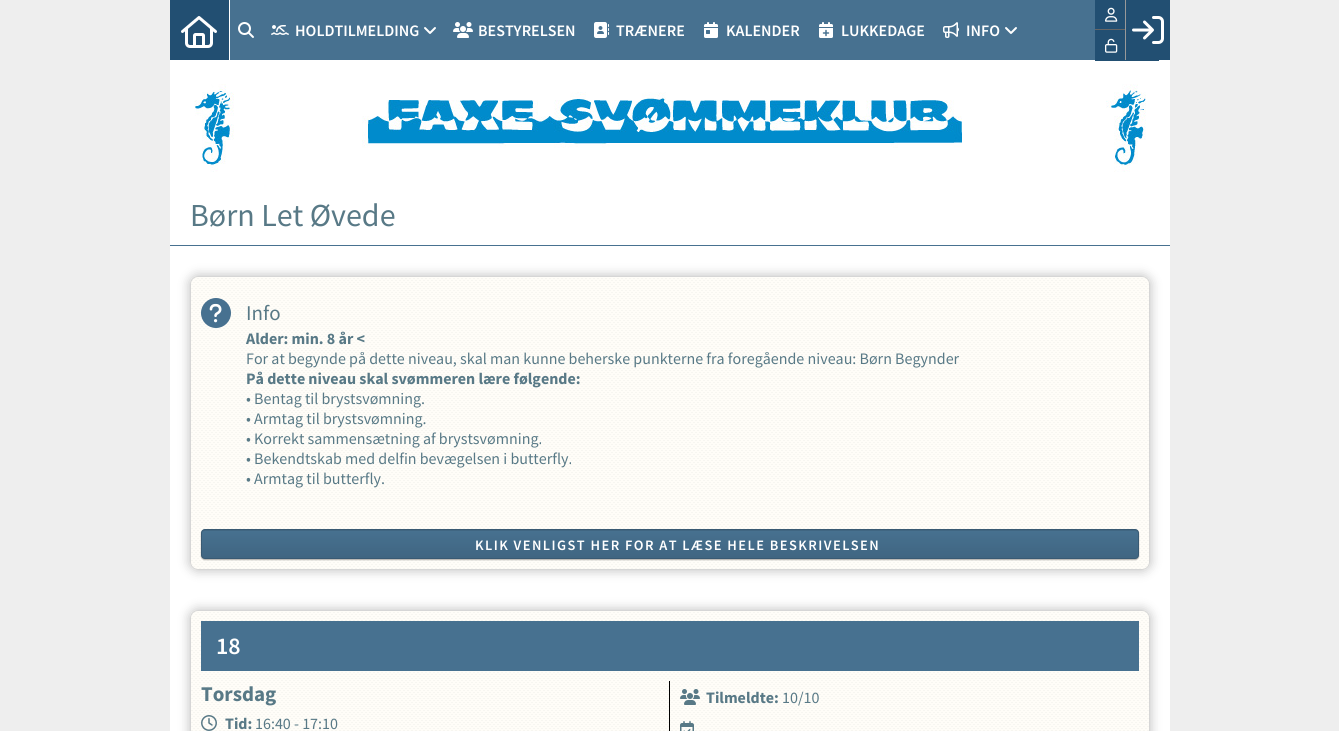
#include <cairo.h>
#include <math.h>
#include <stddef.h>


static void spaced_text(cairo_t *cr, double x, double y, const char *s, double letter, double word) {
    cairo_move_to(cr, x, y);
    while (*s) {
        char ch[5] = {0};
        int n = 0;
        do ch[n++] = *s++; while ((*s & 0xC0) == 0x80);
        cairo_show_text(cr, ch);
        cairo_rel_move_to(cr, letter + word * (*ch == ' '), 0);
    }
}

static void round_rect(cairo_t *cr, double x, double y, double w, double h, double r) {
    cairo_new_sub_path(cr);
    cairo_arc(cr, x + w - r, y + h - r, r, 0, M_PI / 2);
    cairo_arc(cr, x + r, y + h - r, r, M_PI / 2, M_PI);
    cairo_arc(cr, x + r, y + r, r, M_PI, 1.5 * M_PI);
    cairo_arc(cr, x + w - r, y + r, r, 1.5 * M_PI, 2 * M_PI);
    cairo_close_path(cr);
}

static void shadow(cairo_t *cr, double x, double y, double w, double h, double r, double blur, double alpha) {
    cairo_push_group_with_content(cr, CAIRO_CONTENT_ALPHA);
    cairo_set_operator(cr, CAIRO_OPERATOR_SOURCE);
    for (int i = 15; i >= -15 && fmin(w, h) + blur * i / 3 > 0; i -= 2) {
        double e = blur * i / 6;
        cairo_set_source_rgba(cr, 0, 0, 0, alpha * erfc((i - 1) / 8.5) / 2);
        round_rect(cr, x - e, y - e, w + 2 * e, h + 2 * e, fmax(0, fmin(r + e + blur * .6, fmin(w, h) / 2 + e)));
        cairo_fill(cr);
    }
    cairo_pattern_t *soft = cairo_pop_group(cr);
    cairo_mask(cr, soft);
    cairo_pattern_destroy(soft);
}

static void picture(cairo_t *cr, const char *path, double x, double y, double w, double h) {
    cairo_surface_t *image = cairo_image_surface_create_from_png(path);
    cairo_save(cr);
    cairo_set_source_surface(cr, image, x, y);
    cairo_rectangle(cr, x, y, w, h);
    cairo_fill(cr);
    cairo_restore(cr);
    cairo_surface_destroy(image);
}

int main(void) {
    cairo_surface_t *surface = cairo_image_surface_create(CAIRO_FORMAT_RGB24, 1339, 731);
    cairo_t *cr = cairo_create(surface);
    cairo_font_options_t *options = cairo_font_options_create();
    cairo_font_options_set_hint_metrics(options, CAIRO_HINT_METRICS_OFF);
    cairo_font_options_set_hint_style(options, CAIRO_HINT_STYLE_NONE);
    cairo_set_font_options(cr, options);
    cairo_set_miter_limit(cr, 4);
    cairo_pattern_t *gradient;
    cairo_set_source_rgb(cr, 0.933, 0.933, 0.933);
    cairo_paint(cr);
    cairo_set_source_rgb(cr, 0.278, 0.443, 0.565);
    cairo_rectangle(cr, 230, 0, 865, 60);
    cairo_fill(cr);
    cairo_set_source_rgb(cr, 0.133, 0.31, 0.447);
    cairo_rectangle(cr, 170, 0, 59, 60);
    cairo_fill(cr);
    cairo_set_source_rgb(cr, 1, 1, 1);
    cairo_rectangle(cr, 229, 0, 1, 60);
    cairo_fill(cr);
    picture(cr, "img1.png", 181, 16, 36, 32);
    picture(cr, "img2.png", 238, 22, 16, 16);
    picture(cr, "img3.png", 271, 25, 18, 10);
    cairo_select_font_face(cr, "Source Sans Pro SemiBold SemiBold", CAIRO_FONT_SLANT_NORMAL, CAIRO_FONT_WEIGHT_NORMAL);
    cairo_set_font_size(cr, 16);
    cairo_move_to(cr, 295, 36);
    cairo_show_text(cr, "HOLDTILMELDING");
    picture(cr, "img4.png", 424, 27, 12, 7);
    picture(cr, "img5.png", 453, 22, 20, 16);
    cairo_move_to(cr, 478, 36);
    cairo_show_text(cr, "BESTYRELSEN");
    picture(cr, "img6.png", 594, 22, 15, 16);
    cairo_move_to(cr, 616, 36);
    cairo_show_text(cr, "TRÆNERE");
    picture(cr, "img7.png", 704, 22, 14, 16);
    cairo_move_to(cr, 726, 36);
    cairo_show_text(cr, "KALENDER");
    picture(cr, "img8.png", 819, 22, 14, 16);
    cairo_move_to(cr, 841, 36);
    cairo_show_text(cr, "LUKKEDAGE");
    picture(cr, "img9.png", 943, 22, 16, 16);
    cairo_move_to(cr, 966, 36);
    cairo_show_text(cr, "INFO");
    picture(cr, "img4.png", 1005, 27, 12, 7);
    cairo_set_source_rgb(cr, 0.133, 0.31, 0.447);
    cairo_rectangle(cr, 1095, 0, 30, 31);
    cairo_fill(cr);
    cairo_set_source_rgb(cr, 0.4, 0.4, 0.4);
    cairo_rectangle(cr, 1095, 29, 33, 1);
    cairo_fill(cr);
    picture(cr, "img10.png", 1105, 7, 13, 15);
    picture(cr, "img13.png", 170, 60, 1000, 135);
    cairo_set_source_rgb(cr, 0.133, 0.31, 0.447);
    cairo_rectangle(cr, 1095, 31, 64, 30);
    cairo_fill(cr);
    picture(cr, "img11.png", 1105, 38, 13, 15);
    cairo_rectangle(cr, 1126, 0, 44, 60);
    cairo_fill(cr);
    cairo_set_source_rgb(cr, 0.6, 0.6, 0.6);
    cairo_rectangle(cr, 1125, 0, 1, 60);
    cairo_fill(cr);
    picture(cr, "img12.png", 1132, 16, 32, 28);
    cairo_set_source_rgb(cr, 1, 1, 1);
    cairo_rectangle(cr, 170, 195, 1000, 536);
    cairo_fill(cr);
    cairo_select_font_face(cr, "Source Sans Pro", CAIRO_FONT_SLANT_NORMAL, CAIRO_FONT_WEIGHT_NORMAL);
    cairo_set_font_size(cr, 32);
    cairo_set_source_rgb(cr, 0.345, 0.475, 0.525);
    cairo_move_to(cr, 190, 226);
    cairo_show_text(cr, "Børn Let Øvede");
    cairo_set_source_rgb(cr, 0.278, 0.443, 0.565);
    cairo_rectangle(cr, 170, 245, 1000, 1);
    cairo_fill(cr);
    cairo_set_source_rgb(cr, 0, 0, 0);
    shadow(cr, 188, 274, 964, 298, 10, 5, 0.2);
    picture(cr, "img14.png", 190, 276, 960, 294);
    round_rect(cr, 190.5, 276.5, 959, 293, 7.5);
    cairo_set_source_rgb(cr, 0.839, 0.839, 0.839);
    cairo_set_line_width(cr, 1);
    cairo_stroke(cr);
    cairo_set_source_rgb(cr, 0.278, 0.443, 0.565);
    cairo_arc(cr, 216, 313, 15, 0, 2 * M_PI);
    cairo_fill(cr);
    picture(cr, "img15.png", 209, 303, 13, 20);
    cairo_set_font_size(cr, 21);
    cairo_set_source_rgb(cr, 0.345, 0.475, 0.525);
    cairo_move_to(cr, 246, 320);
    cairo_show_text(cr, "Info");
    cairo_select_font_face(cr, "Source Sans Pro", CAIRO_FONT_SLANT_NORMAL, CAIRO_FONT_WEIGHT_BOLD);
    cairo_set_font_size(cr, 16);
    cairo_move_to(cr, 246, 344);
    cairo_show_text(cr, "Alder: min. 8 år <");
    cairo_select_font_face(cr, "Source Sans Pro", CAIRO_FONT_SLANT_NORMAL, CAIRO_FONT_WEIGHT_NORMAL);
    cairo_move_to(cr, 246, 364);
    cairo_show_text(cr, "For at begynde på dette niveau, skal man kunne beherske punkterne fra foregående niveau: Børn Begynder");
    cairo_select_font_face(cr, "Source Sans Pro", CAIRO_FONT_SLANT_NORMAL, CAIRO_FONT_WEIGHT_BOLD);
    cairo_move_to(cr, 246, 384);
    cairo_show_text(cr, "På dette niveau skal svømmeren lære følgende:");
    cairo_select_font_face(cr, "Source Sans Pro", CAIRO_FONT_SLANT_NORMAL, CAIRO_FONT_WEIGHT_NORMAL);
    cairo_move_to(cr, 246, 404);
    cairo_show_text(cr, "• Bentag til brystsvømning.");
    cairo_move_to(cr, 246, 424);
    cairo_show_text(cr, "• Armtag til brystsvømning.");
    cairo_move_to(cr, 246, 444);
    cairo_show_text(cr, "• Korrekt sammensætning af brystsvømning.");
    cairo_move_to(cr, 246, 464);
    cairo_show_text(cr, "• Bekendtskab med delfin bevægelsen i butterfly.");
    cairo_move_to(cr, 246, 484);
    cairo_show_text(cr, "• Armtag til butterfly.");
    cairo_set_source_rgb(cr, 0, 0, 0);
    shadow(cr, 201, 530, 938, 30, 4, 0.5, 0.3);
    cairo_set_source_rgb(cr, 0.278, 0.443, 0.565);
    round_rect(cr, 201, 529, 938, 30, 4);
    cairo_fill(cr);
    cairo_set_source_rgb(cr, 0.251, 0.4, 0.51);
    cairo_new_path(cr);
    cairo_move_to(cr, 205, 531);
    cairo_line_to(cr, 1135, 531);
    cairo_curve_to(cr, 1137, 531, 1138, 532, 1138, 534);
    cairo_curve_to(cr, 1138, 532, 1137, 530, 1135, 530);
    cairo_line_to(cr, 205, 530);
    cairo_curve_to(cr, 203, 530, 202, 532, 202, 534);
    cairo_curve_to(cr, 202, 532, 203, 531, 205, 531);
    cairo_close_path(cr);
    cairo_fill(cr);
    round_rect(cr, 201.5, 529.5, 937, 29, 3.5);
    cairo_set_source_rgba(cr, 0, 0, 0, 0.2);
    cairo_stroke(cr);
    gradient = cairo_pattern_create_linear(670, 530, 670, 558);
    cairo_pattern_add_color_stop_rgba(gradient, 0, 0, 0, 0, 0);
    cairo_pattern_add_color_stop_rgba(gradient, 1, 0, 0, 0, 0.1);
    cairo_set_source(cr, gradient);
    cairo_pattern_destroy(gradient);
    round_rect(cr, 202, 530, 936, 28, 3);
    cairo_fill(cr);
    cairo_select_font_face(cr, "Source Sans Pro SemiBold SemiBold", CAIRO_FONT_SLANT_NORMAL, CAIRO_FONT_WEIGHT_NORMAL);
    cairo_set_font_size(cr, 14.4);
    cairo_set_source_rgb(cr, 1, 1, 1);
    spaced_text(cr, 475, 550, "KLIK VENLIGST HER FOR AT LÆSE HELE BESKRIVELSEN", 1.45, 0);
    cairo_set_source_rgb(cr, 0, 0, 0);
    shadow(cr, 188, 608, 964, 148, 10, 5, 0.2);
    picture(cr, "img16.png", 190, 610, 960, 121);
    round_rect(cr, 190.5, 610.5, 959, 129, 7.5);
    cairo_set_source_rgb(cr, 0.839, 0.839, 0.839);
    cairo_stroke(cr);
    cairo_set_source_rgb(cr, 0.278, 0.443, 0.565);
    cairo_rectangle(cr, 201, 621, 938, 50);
    cairo_fill(cr);
    cairo_set_font_size(cr, 24);
    cairo_set_source_rgb(cr, 1, 1, 1);
    cairo_move_to(cr, 216, 654);
    cairo_show_text(cr, "18");
    cairo_select_font_face(cr, "Source Sans Pro", CAIRO_FONT_SLANT_NORMAL, CAIRO_FONT_WEIGHT_BOLD);
    cairo_set_font_size(cr, 21);
    cairo_set_source_rgb(cr, 0.345, 0.475, 0.525);
    cairo_move_to(cr, 201, 701);
    cairo_show_text(cr, "Torsdag");
    picture(cr, "img17.png", 201, 715, 16, 16);
    cairo_set_font_size(cr, 16);
    cairo_move_to(cr, 225, 729);
    cairo_show_text(cr, "Tid:");
    cairo_select_font_face(cr, "Source Sans Pro", CAIRO_FONT_SLANT_NORMAL, CAIRO_FONT_WEIGHT_NORMAL);
    cairo_move_to(cr, 255, 729);
    cairo_show_text(cr, "16:40 - 17:10");
    cairo_set_source_rgb(cr, 0, 0, 0);
    cairo_rectangle(cr, 669, 681, 1, 50);
    cairo_fill(cr);
    picture(cr, "img18.png", 680, 689, 20, 16);
    cairo_select_font_face(cr, "Source Sans Pro", CAIRO_FONT_SLANT_NORMAL, CAIRO_FONT_WEIGHT_BOLD);
    cairo_set_source_rgb(cr, 0.345, 0.475, 0.525);
    cairo_move_to(cr, 706, 703);
    cairo_show_text(cr, "Tilmeldte:");
    cairo_select_font_face(cr, "Source Sans Pro", CAIRO_FONT_SLANT_NORMAL, CAIRO_FONT_WEIGHT_NORMAL);
    cairo_move_to(cr, 782, 703);
    cairo_show_text(cr, "10/10");
    picture(cr, "img19.png", 680, 721, 14, 10);
    cairo_surface_write_to_png(surface, "page.png");
    cairo_font_options_destroy(options);
    cairo_destroy(cr);
    cairo_surface_destroy(surface);
    return 0;
}
